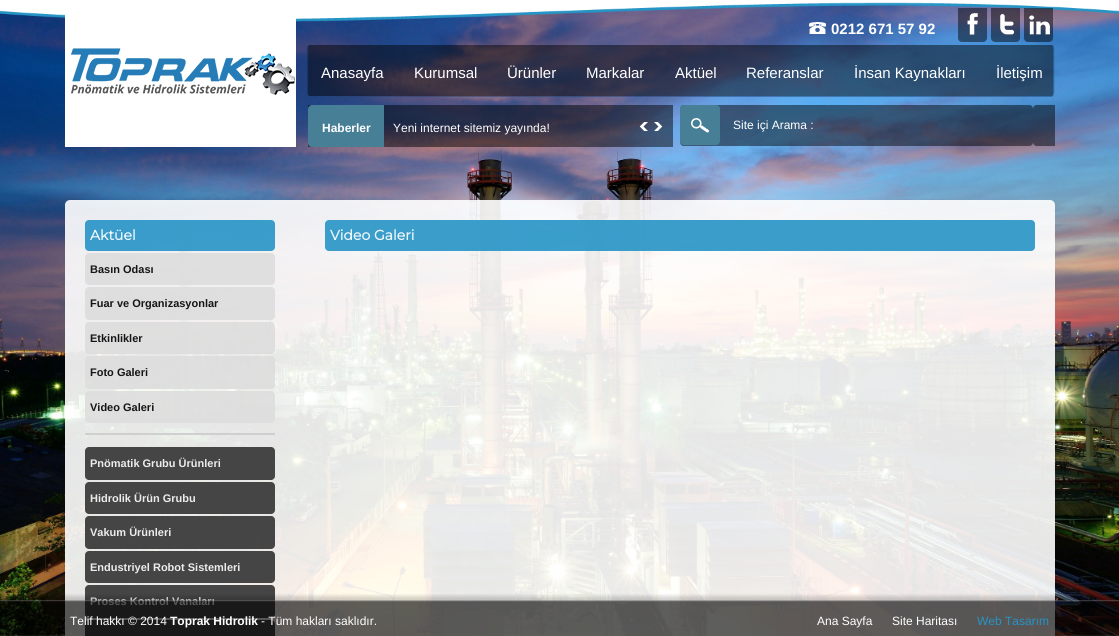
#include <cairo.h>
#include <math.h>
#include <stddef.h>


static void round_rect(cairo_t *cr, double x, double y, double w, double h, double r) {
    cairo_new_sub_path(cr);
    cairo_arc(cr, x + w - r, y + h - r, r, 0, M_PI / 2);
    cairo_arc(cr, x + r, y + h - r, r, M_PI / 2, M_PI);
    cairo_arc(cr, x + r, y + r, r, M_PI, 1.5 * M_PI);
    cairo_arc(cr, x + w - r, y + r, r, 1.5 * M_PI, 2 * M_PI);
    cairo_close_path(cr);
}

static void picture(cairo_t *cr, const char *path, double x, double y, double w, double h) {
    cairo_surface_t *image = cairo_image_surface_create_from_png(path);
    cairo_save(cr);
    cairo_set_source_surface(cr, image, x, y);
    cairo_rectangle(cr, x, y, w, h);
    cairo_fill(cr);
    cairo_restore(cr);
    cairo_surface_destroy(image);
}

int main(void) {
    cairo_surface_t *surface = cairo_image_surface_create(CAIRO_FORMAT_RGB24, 1119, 636);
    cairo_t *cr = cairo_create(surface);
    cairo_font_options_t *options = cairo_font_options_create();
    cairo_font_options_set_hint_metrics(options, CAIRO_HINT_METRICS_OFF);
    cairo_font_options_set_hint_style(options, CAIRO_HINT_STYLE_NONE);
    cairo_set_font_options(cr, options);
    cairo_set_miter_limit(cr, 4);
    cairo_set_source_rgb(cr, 1, 1, 1);
    cairo_paint(cr);
    picture(cr, "img2.png", 0, 5, 1119, 631);
    picture(cr, "img1.png", 0, 0, 1119, 22);
    picture(cr, "img3.png", 65, 14, 231, 133);
    picture(cr, "img4.png", 809, 22, 17, 12);
    cairo_select_font_face(cr, "Liberation Sans", CAIRO_FONT_SLANT_NORMAL, CAIRO_FONT_WEIGHT_BOLD);
    cairo_set_font_size(cr, 15);
    cairo_set_source_rgb(cr, 1, 1, 1);
    cairo_move_to(cr, 831, 34);
    cairo_show_text(cr, "0212 671 57 92");
    picture(cr, "img5.png", 958, 8, 29, 34);
    picture(cr, "img6.png", 991, 8, 29, 34);
    picture(cr, "img7.png", 1024, 8, 29, 34);
    picture(cr, "img8.png", 306, 45, 749, 52);
    cairo_select_font_face(cr, "Liberation Sans", CAIRO_FONT_SLANT_NORMAL, CAIRO_FONT_WEIGHT_NORMAL);
    cairo_move_to(cr, 321, 78);
    cairo_show_text(cr, "Anasayfa");
    cairo_move_to(cr, 414, 78);
    cairo_show_text(cr, "Kurumsal");
    cairo_move_to(cr, 507, 78);
    cairo_show_text(cr, "Ürünler");
    cairo_move_to(cr, 586, 78);
    cairo_show_text(cr, "Markalar");
    cairo_move_to(cr, 675, 78);
    cairo_show_text(cr, "Aktüel");
    cairo_move_to(cr, 746, 78);
    cairo_show_text(cr, "Referanslar");
    cairo_move_to(cr, 854, 78);
    cairo_show_text(cr, "İnsan Kaynakları");
    cairo_move_to(cr, 996, 78);
    cairo_show_text(cr, "İletişim");
    cairo_set_source_rgba(cr, 0, 0, 0, 0.48);
    cairo_rectangle(cr, 308, 105, 365, 42);
    cairo_fill(cr);
    cairo_set_source_rgb(cr, 0.278, 0.498, 0.592);
    cairo_new_path(cr);
    cairo_move_to(cr, 312, 105);
    cairo_line_to(cr, 384, 105);
    cairo_line_to(cr, 384, 147);
    cairo_line_to(cr, 312, 147);
    cairo_curve_to(cr, 310, 147, 308, 145, 308, 143);
    cairo_line_to(cr, 308, 109);
    cairo_curve_to(cr, 308, 107, 310, 105, 312, 105);
    cairo_close_path(cr);
    cairo_fill(cr);
    cairo_select_font_face(cr, "Liberation Sans", CAIRO_FONT_SLANT_NORMAL, CAIRO_FONT_WEIGHT_BOLD);
    cairo_set_font_size(cr, 12);
    cairo_set_source_rgb(cr, 1, 1, 1);
    cairo_move_to(cr, 322, 132);
    cairo_show_text(cr, "Haberler");
    cairo_select_font_face(cr, "Liberation Sans", CAIRO_FONT_SLANT_NORMAL, CAIRO_FONT_WEIGHT_NORMAL);
    cairo_move_to(cr, 393, 132);
    cairo_show_text(cr, "Yeni internet sitemiz yayında!");
    picture(cr, "img9.png", 639, 122, 9, 9);
    picture(cr, "img10.png", 654, 122, 9, 9);
    picture(cr, "img11.png", 680, 105, 375, 41);
    cairo_set_source_rgb(cr, 0.278, 0.498, 0.592);
    round_rect(cr, 680, 105, 40, 40, 4);
    cairo_fill(cr);
    picture(cr, "img12.png", 691, 118, 18, 15);
    cairo_set_source_rgb(cr, 1, 1, 1);
    cairo_move_to(cr, 733, 129);
    cairo_show_text(cr, "Site içi Arama :");
    cairo_set_source_rgba(cr, 1, 1, 1, 0.9);
    round_rect(cr, 65, 200, 990, 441, 5);
    cairo_fill(cr);
    cairo_set_source_rgba(cr, 0.149, 0.58, 0.773, 0.9);
    round_rect(cr, 85, 220, 190, 31, 4);
    cairo_fill(cr);
    cairo_select_font_face(cr, "Montserrat", CAIRO_FONT_SLANT_NORMAL, CAIRO_FONT_WEIGHT_BOLD);
    cairo_set_font_size(cr, 14);
    cairo_set_source_rgb(cr, 0.922, 0.961, 0.98);
    cairo_move_to(cr, 90, 240);
    cairo_show_text(cr, "Aktüel");
    cairo_set_source_rgba(cr, 0.867, 0.867, 0.867, 0.9);
    round_rect(cr, 85, 253, 190, 32, 4);
    cairo_fill(cr);
    cairo_select_font_face(cr, "Liberation Sans", CAIRO_FONT_SLANT_NORMAL, CAIRO_FONT_WEIGHT_BOLD);
    cairo_set_font_size(cr, 11);
    cairo_set_source_rgb(cr, 0.086, 0.086, 0.086);
    cairo_move_to(cr, 90, 273);
    cairo_show_text(cr, "Basın Odası");
    cairo_set_source_rgba(cr, 0.867, 0.867, 0.867, 0.9);
    round_rect(cr, 85, 287, 190, 33, 4);
    cairo_fill(cr);
    cairo_set_source_rgb(cr, 0.086, 0.086, 0.086);
    cairo_move_to(cr, 90, 307);
    cairo_show_text(cr, "Fuar ve Organizasyonlar");
    cairo_set_source_rgba(cr, 0.867, 0.867, 0.867, 0.9);
    round_rect(cr, 85, 322, 190, 32, 4);
    cairo_fill(cr);
    cairo_set_source_rgb(cr, 0.086, 0.086, 0.086);
    cairo_move_to(cr, 90, 342);
    cairo_show_text(cr, "Etkinlikler");
    cairo_set_source_rgba(cr, 0.867, 0.867, 0.867, 0.9);
    round_rect(cr, 85, 356, 190, 33, 4);
    cairo_fill(cr);
    cairo_set_source_rgb(cr, 0.086, 0.086, 0.086);
    cairo_move_to(cr, 90, 376);
    cairo_show_text(cr, "Foto Galeri");
    cairo_set_source_rgba(cr, 0.867, 0.867, 0.867, 0.9);
    round_rect(cr, 85, 391, 190, 32, 4);
    cairo_fill(cr);
    cairo_set_source_rgb(cr, 0.086, 0.086, 0.086);
    cairo_move_to(cr, 90, 411);
    cairo_show_text(cr, "Video Galeri");
    cairo_set_source_rgba(cr, 0.8, 0.8, 0.8, 0.9);
    cairo_rectangle(cr, 85, 433, 190, 2);
    cairo_fill(cr);
    cairo_set_source_rgba(cr, 0.2, 0.2, 0.2, 0.9);
    round_rect(cr, 85, 447, 190, 33, 4);
    cairo_fill(cr);
    cairo_set_source_rgb(cr, 0.925, 0.925, 0.925);
    cairo_move_to(cr, 90, 467);
    cairo_show_text(cr, "Pnömatik Grubu Ürünleri");
    cairo_set_source_rgba(cr, 0.2, 0.2, 0.2, 0.9);
    round_rect(cr, 85, 482, 190, 32, 4);
    cairo_fill(cr);
    cairo_set_source_rgb(cr, 0.925, 0.925, 0.925);
    cairo_move_to(cr, 90, 502);
    cairo_show_text(cr, "Hidrolik Ürün Grubu");
    cairo_set_source_rgba(cr, 0.2, 0.2, 0.2, 0.9);
    round_rect(cr, 85, 516, 190, 33, 4);
    cairo_fill(cr);
    cairo_set_source_rgb(cr, 0.925, 0.925, 0.925);
    cairo_move_to(cr, 90, 536);
    cairo_show_text(cr, "Vakum Ürünleri");
    cairo_set_source_rgba(cr, 0.2, 0.2, 0.2, 0.9);
    round_rect(cr, 85, 551, 190, 32, 4);
    cairo_fill(cr);
    cairo_set_source_rgb(cr, 0.925, 0.925, 0.925);
    cairo_move_to(cr, 90, 571);
    cairo_show_text(cr, "Endustriyel Robot Sistemleri");
    cairo_set_source_rgba(cr, 0.2, 0.2, 0.2, 0.9);
    round_rect(cr, 85, 585, 190, 33, 4);
    cairo_fill(cr);
    cairo_set_source_rgb(cr, 0.925, 0.925, 0.925);
    cairo_move_to(cr, 90, 605);
    cairo_show_text(cr, "Proses Kontrol Vanaları");
    cairo_set_source_rgba(cr, 0.2, 0.2, 0.2, 0.9);
    round_rect(cr, 85, 620, 190, 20, 4);
    cairo_fill(cr);
    cairo_set_source_rgba(cr, 0.149, 0.58, 0.773, 0.9);
    round_rect(cr, 325, 220, 710, 31, 4);
    cairo_fill(cr);
    cairo_select_font_face(cr, "Montserrat", CAIRO_FONT_SLANT_NORMAL, CAIRO_FONT_WEIGHT_BOLD);
    cairo_set_font_size(cr, 14);
    cairo_set_source_rgb(cr, 0.922, 0.961, 0.98);
    cairo_move_to(cr, 330, 240);
    cairo_show_text(cr, "Video Galeri");
    picture(cr, "img13.png", 0, 594, 1119, 42);
    cairo_select_font_face(cr, "Liberation Sans", CAIRO_FONT_SLANT_NORMAL, CAIRO_FONT_WEIGHT_NORMAL);
    cairo_set_font_size(cr, 12);
    cairo_set_source_rgb(cr, 1, 1, 1);
    cairo_move_to(cr, 70, 625);
    cairo_show_text(cr, "Telif hakkı © 2014");
    cairo_select_font_face(cr, "Liberation Sans", CAIRO_FONT_SLANT_NORMAL, CAIRO_FONT_WEIGHT_BOLD);
    cairo_move_to(cr, 170, 625);
    cairo_show_text(cr, "Toprak Hidrolik");
    cairo_select_font_face(cr, "Liberation Sans", CAIRO_FONT_SLANT_NORMAL, CAIRO_FONT_WEIGHT_NORMAL);
    cairo_move_to(cr, 261, 625);
    cairo_show_text(cr, "- Tüm hakları saklıdır.");
    cairo_move_to(cr, 817, 625);
    cairo_show_text(cr, "Ana Sayfa");
    cairo_move_to(cr, 892, 625);
    cairo_show_text(cr, "Site Haritası");
    cairo_set_source_rgb(cr, 0.149, 0.58, 0.773);
    cairo_move_to(cr, 977, 625);
    cairo_show_text(cr, "Web Tasarım");
    cairo_surface_write_to_png(surface, "page.png");
    cairo_font_options_destroy(options);
    cairo_destroy(cr);
    cairo_surface_destroy(surface);
    return 0;
}
